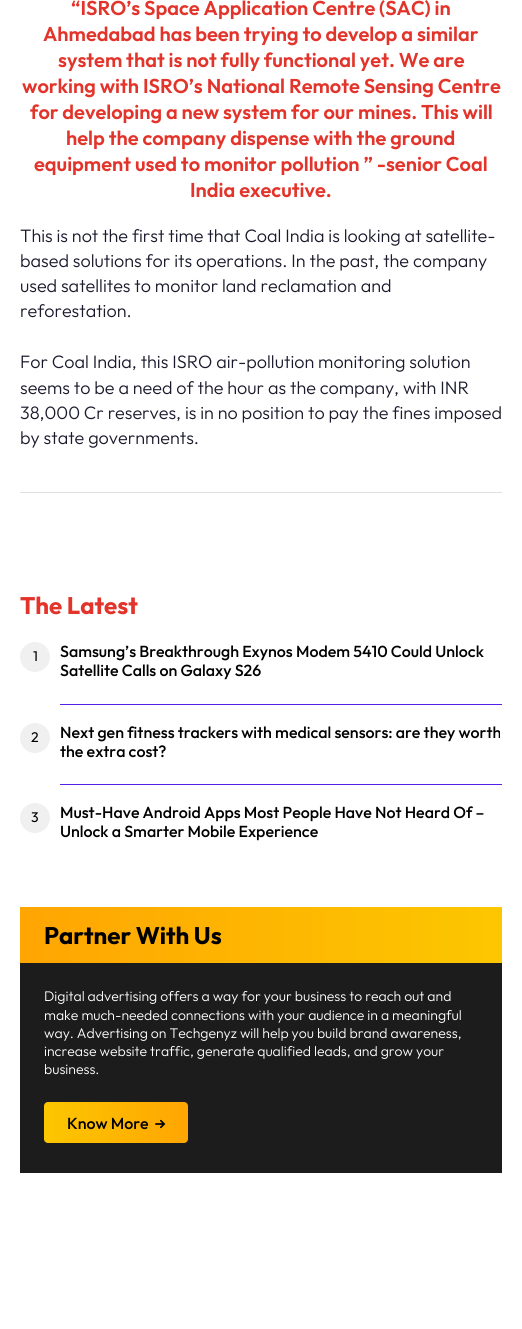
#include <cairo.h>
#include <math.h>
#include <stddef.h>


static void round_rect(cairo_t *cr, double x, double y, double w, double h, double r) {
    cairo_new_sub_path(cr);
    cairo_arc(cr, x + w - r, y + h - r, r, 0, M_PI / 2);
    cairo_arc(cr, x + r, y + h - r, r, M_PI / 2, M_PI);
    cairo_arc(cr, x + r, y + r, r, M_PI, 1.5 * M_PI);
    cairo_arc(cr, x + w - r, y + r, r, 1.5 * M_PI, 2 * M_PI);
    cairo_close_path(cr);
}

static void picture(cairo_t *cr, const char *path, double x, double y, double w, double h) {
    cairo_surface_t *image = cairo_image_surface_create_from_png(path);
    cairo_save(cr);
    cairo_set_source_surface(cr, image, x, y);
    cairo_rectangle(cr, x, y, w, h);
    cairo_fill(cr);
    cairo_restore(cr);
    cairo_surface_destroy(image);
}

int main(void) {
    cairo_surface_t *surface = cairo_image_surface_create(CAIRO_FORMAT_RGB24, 522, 1329);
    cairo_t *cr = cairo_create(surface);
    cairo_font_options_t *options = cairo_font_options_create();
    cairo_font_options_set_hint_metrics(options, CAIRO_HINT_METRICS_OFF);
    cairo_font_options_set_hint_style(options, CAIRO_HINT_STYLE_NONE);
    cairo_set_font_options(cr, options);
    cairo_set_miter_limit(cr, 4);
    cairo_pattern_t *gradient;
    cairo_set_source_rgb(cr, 1, 1, 1);
    cairo_paint(cr);
    cairo_set_source_rgb(cr, 0.882, 0.882, 0.882);
    cairo_rectangle(cr, 20, 492, 482, 1);
    cairo_fill(cr);
    cairo_select_font_face(cr, "Outfit SemiBold", CAIRO_FONT_SLANT_NORMAL, CAIRO_FONT_WEIGHT_NORMAL);
    cairo_set_font_size(cr, 20);
    cairo_set_source_rgb(cr, 0.886, 0.204, 0.169);
    cairo_move_to(cr, 71, 15);
    cairo_show_text(cr, "“ISRO’s Space Application Centre (SAC) in");
    cairo_move_to(cr, 43, 41);
    cairo_show_text(cr, "Ahmedabad has been trying to develop a similar");
    cairo_move_to(cr, 58, 67);
    cairo_show_text(cr, "system that is not fully functional yet. We are");
    cairo_move_to(cr, 22, 93);
    cairo_show_text(cr, "working with ISRO’s National Remote Sensing Centre");
    cairo_move_to(cr, 30, 119);
    cairo_show_text(cr, "for developing a new system for our mines. This will");
    cairo_move_to(cr, 66, 145);
    cairo_show_text(cr, "help the company dispense with the ground");
    cairo_move_to(cr, 34, 171);
    cairo_show_text(cr, "equipment used to monitor pollution ” -senior Coal");
    cairo_move_to(cr, 190, 197);
    cairo_show_text(cr, "India executive.");
    cairo_select_font_face(cr, "Outfit Light", CAIRO_FONT_SLANT_NORMAL, CAIRO_FONT_WEIGHT_NORMAL);
    cairo_set_font_size(cr, 18);
    cairo_set_source_rgb(cr, 0.102, 0.102, 0.173);
    cairo_move_to(cr, 20, 242);
    cairo_show_text(cr, "This is not the first time that Coal India is looking at satellite-");
    cairo_move_to(cr, 20, 267);
    cairo_show_text(cr, "based solutions for its operations. In the past, the company");
    cairo_move_to(cr, 20, 292);
    cairo_show_text(cr, "used satellites to monitor land reclamation and");
    cairo_move_to(cr, 20, 317);
    cairo_show_text(cr, "reforestation.");
    cairo_move_to(cr, 20, 368);
    cairo_show_text(cr, "For Coal India, this ISRO air-pollution monitoring solution");
    cairo_move_to(cr, 20, 394);
    cairo_show_text(cr, "seems to be a need of the hour as the company, with INR");
    cairo_move_to(cr, 20, 419);
    cairo_show_text(cr, "38,000 Cr reserves, is in no position to pay the fines imposed");
    cairo_move_to(cr, 20, 444);
    cairo_show_text(cr, "by state governments.");
    cairo_select_font_face(cr, "Outfit", CAIRO_FONT_SLANT_NORMAL, CAIRO_FONT_WEIGHT_BOLD);
    cairo_set_font_size(cr, 24);
    cairo_set_source_rgb(cr, 0.886, 0.204, 0.169);
    cairo_move_to(cr, 20, 614);
    cairo_show_text(cr, "The Latest");
    cairo_set_source_rgb(cr, 0.941, 0.941, 0.941);
    cairo_new_path(cr);
    cairo_arc(cr, 35, 657, 15, 0, 2 * M_PI);
    cairo_fill(cr);
    cairo_select_font_face(cr, "Outfit", CAIRO_FONT_SLANT_NORMAL, CAIRO_FONT_WEIGHT_NORMAL);
    cairo_set_font_size(cr, 14);
    cairo_set_source_rgb(cr, 0, 0, 0);
    cairo_move_to(cr, 33, 661);
    cairo_show_text(cr, "1");
    cairo_select_font_face(cr, "Outfit Medium", CAIRO_FONT_SLANT_NORMAL, CAIRO_FONT_WEIGHT_NORMAL);
    cairo_set_font_size(cr, 16);
    cairo_move_to(cr, 60, 657);
    cairo_show_text(cr, "Samsung’s Breakthrough Exynos Modem 5410 Could Unlock");
    cairo_move_to(cr, 60, 676);
    cairo_show_text(cr, "Satellite Calls on Galaxy S26");
    cairo_set_source_rgb(cr, 0.322, 0.125, 0.914);
    cairo_rectangle(cr, 60, 704, 442, 1);
    cairo_fill(cr);
    cairo_set_source_rgb(cr, 0.941, 0.941, 0.941);
    cairo_arc(cr, 35, 738, 15, 0, 2 * M_PI);
    cairo_fill(cr);
    cairo_select_font_face(cr, "Outfit", CAIRO_FONT_SLANT_NORMAL, CAIRO_FONT_WEIGHT_NORMAL);
    cairo_set_font_size(cr, 14);
    cairo_set_source_rgb(cr, 0, 0, 0);
    cairo_move_to(cr, 31, 742);
    cairo_show_text(cr, "2");
    cairo_select_font_face(cr, "Outfit Medium", CAIRO_FONT_SLANT_NORMAL, CAIRO_FONT_WEIGHT_NORMAL);
    cairo_set_font_size(cr, 16);
    cairo_move_to(cr, 60, 738);
    cairo_show_text(cr, "Next gen fitness trackers with medical sensors: are they worth");
    cairo_move_to(cr, 60, 757);
    cairo_show_text(cr, "the extra cost?");
    cairo_set_source_rgb(cr, 0.322, 0.125, 0.914);
    cairo_rectangle(cr, 60, 784, 442, 1);
    cairo_fill(cr);
    cairo_set_source_rgb(cr, 0.941, 0.941, 0.941);
    cairo_arc(cr, 35, 818, 15, 0, 2 * M_PI);
    cairo_fill(cr);
    cairo_select_font_face(cr, "Outfit", CAIRO_FONT_SLANT_NORMAL, CAIRO_FONT_WEIGHT_NORMAL);
    cairo_set_font_size(cr, 14);
    cairo_set_source_rgb(cr, 0, 0, 0);
    cairo_move_to(cr, 31, 822);
    cairo_show_text(cr, "3");
    cairo_select_font_face(cr, "Outfit Medium", CAIRO_FONT_SLANT_NORMAL, CAIRO_FONT_WEIGHT_NORMAL);
    cairo_set_font_size(cr, 16);
    cairo_move_to(cr, 60, 818);
    cairo_show_text(cr, "Must-Have Android Apps Most People Have Not Heard Of –");
    cairo_move_to(cr, 60, 837);
    cairo_show_text(cr, "Unlock a Smarter Mobile Experience");
    gradient = cairo_pattern_create_linear(20, 935, 502, 935);
    cairo_pattern_add_color_stop_rgba(gradient, 0, 1, 0.647, 0.008, 1);
    cairo_pattern_add_color_stop_rgba(gradient, 1, 0.988, 0.78, 0, 1);
    cairo_set_source(cr, gradient);
    cairo_pattern_destroy(gradient);
    cairo_rectangle(cr, 20, 907, 482, 56);
    cairo_fill(cr);
    cairo_select_font_face(cr, "Outfit", CAIRO_FONT_SLANT_NORMAL, CAIRO_FONT_WEIGHT_BOLD);
    cairo_set_font_size(cr, 24);
    cairo_set_source_rgb(cr, 0, 0, 0);
    cairo_move_to(cr, 44, 944);
    cairo_show_text(cr, "Partner With Us");
    cairo_set_source_rgb(cr, 0.11, 0.11, 0.11);
    cairo_rectangle(cr, 20, 963, 482, 210);
    cairo_fill(cr);
    cairo_select_font_face(cr, "Outfit Light", CAIRO_FONT_SLANT_NORMAL, CAIRO_FONT_WEIGHT_NORMAL);
    cairo_set_font_size(cr, 14);
    cairo_set_source_rgb(cr, 1, 1, 1);
    cairo_move_to(cr, 44, 1001);
    cairo_show_text(cr, "Digital advertising offers a way for your business to reach out and");
    cairo_move_to(cr, 44, 1020);
    cairo_show_text(cr, "make much-needed connections with your audience in a meaningful");
    cairo_move_to(cr, 44, 1038);
    cairo_show_text(cr, "way. Advertising on Techgenyz will help you build brand awareness,");
    cairo_move_to(cr, 44, 1056);
    cairo_show_text(cr, "increase website traffic, generate qualified leads, and grow your");
    cairo_move_to(cr, 44, 1074);
    cairo_show_text(cr, "business.");
    gradient = cairo_pattern_create_linear(44, 1123, 188, 1123);
    cairo_pattern_add_color_stop_rgba(gradient, 0, 0.988, 0.78, 0, 1);
    cairo_pattern_add_color_stop_rgba(gradient, 1, 1, 0.647, 0.008, 1);
    cairo_set_source(cr, gradient);
    cairo_pattern_destroy(gradient);
    round_rect(cr, 44, 1102, 144, 41, 4);
    cairo_fill(cr);
    cairo_select_font_face(cr, "Outfit Medium", CAIRO_FONT_SLANT_NORMAL, CAIRO_FONT_WEIGHT_NORMAL);
    cairo_set_font_size(cr, 16);
    cairo_set_source_rgb(cr, 0, 0, 0);
    cairo_move_to(cr, 67, 1129);
    cairo_show_text(cr, "Know More");
    picture(cr, "img1.png", 155, 1119, 11, 10);
    cairo_surface_write_to_png(surface, "page.png");
    cairo_font_options_destroy(options);
    cairo_destroy(cr);
    cairo_surface_destroy(surface);
    return 0;
}
